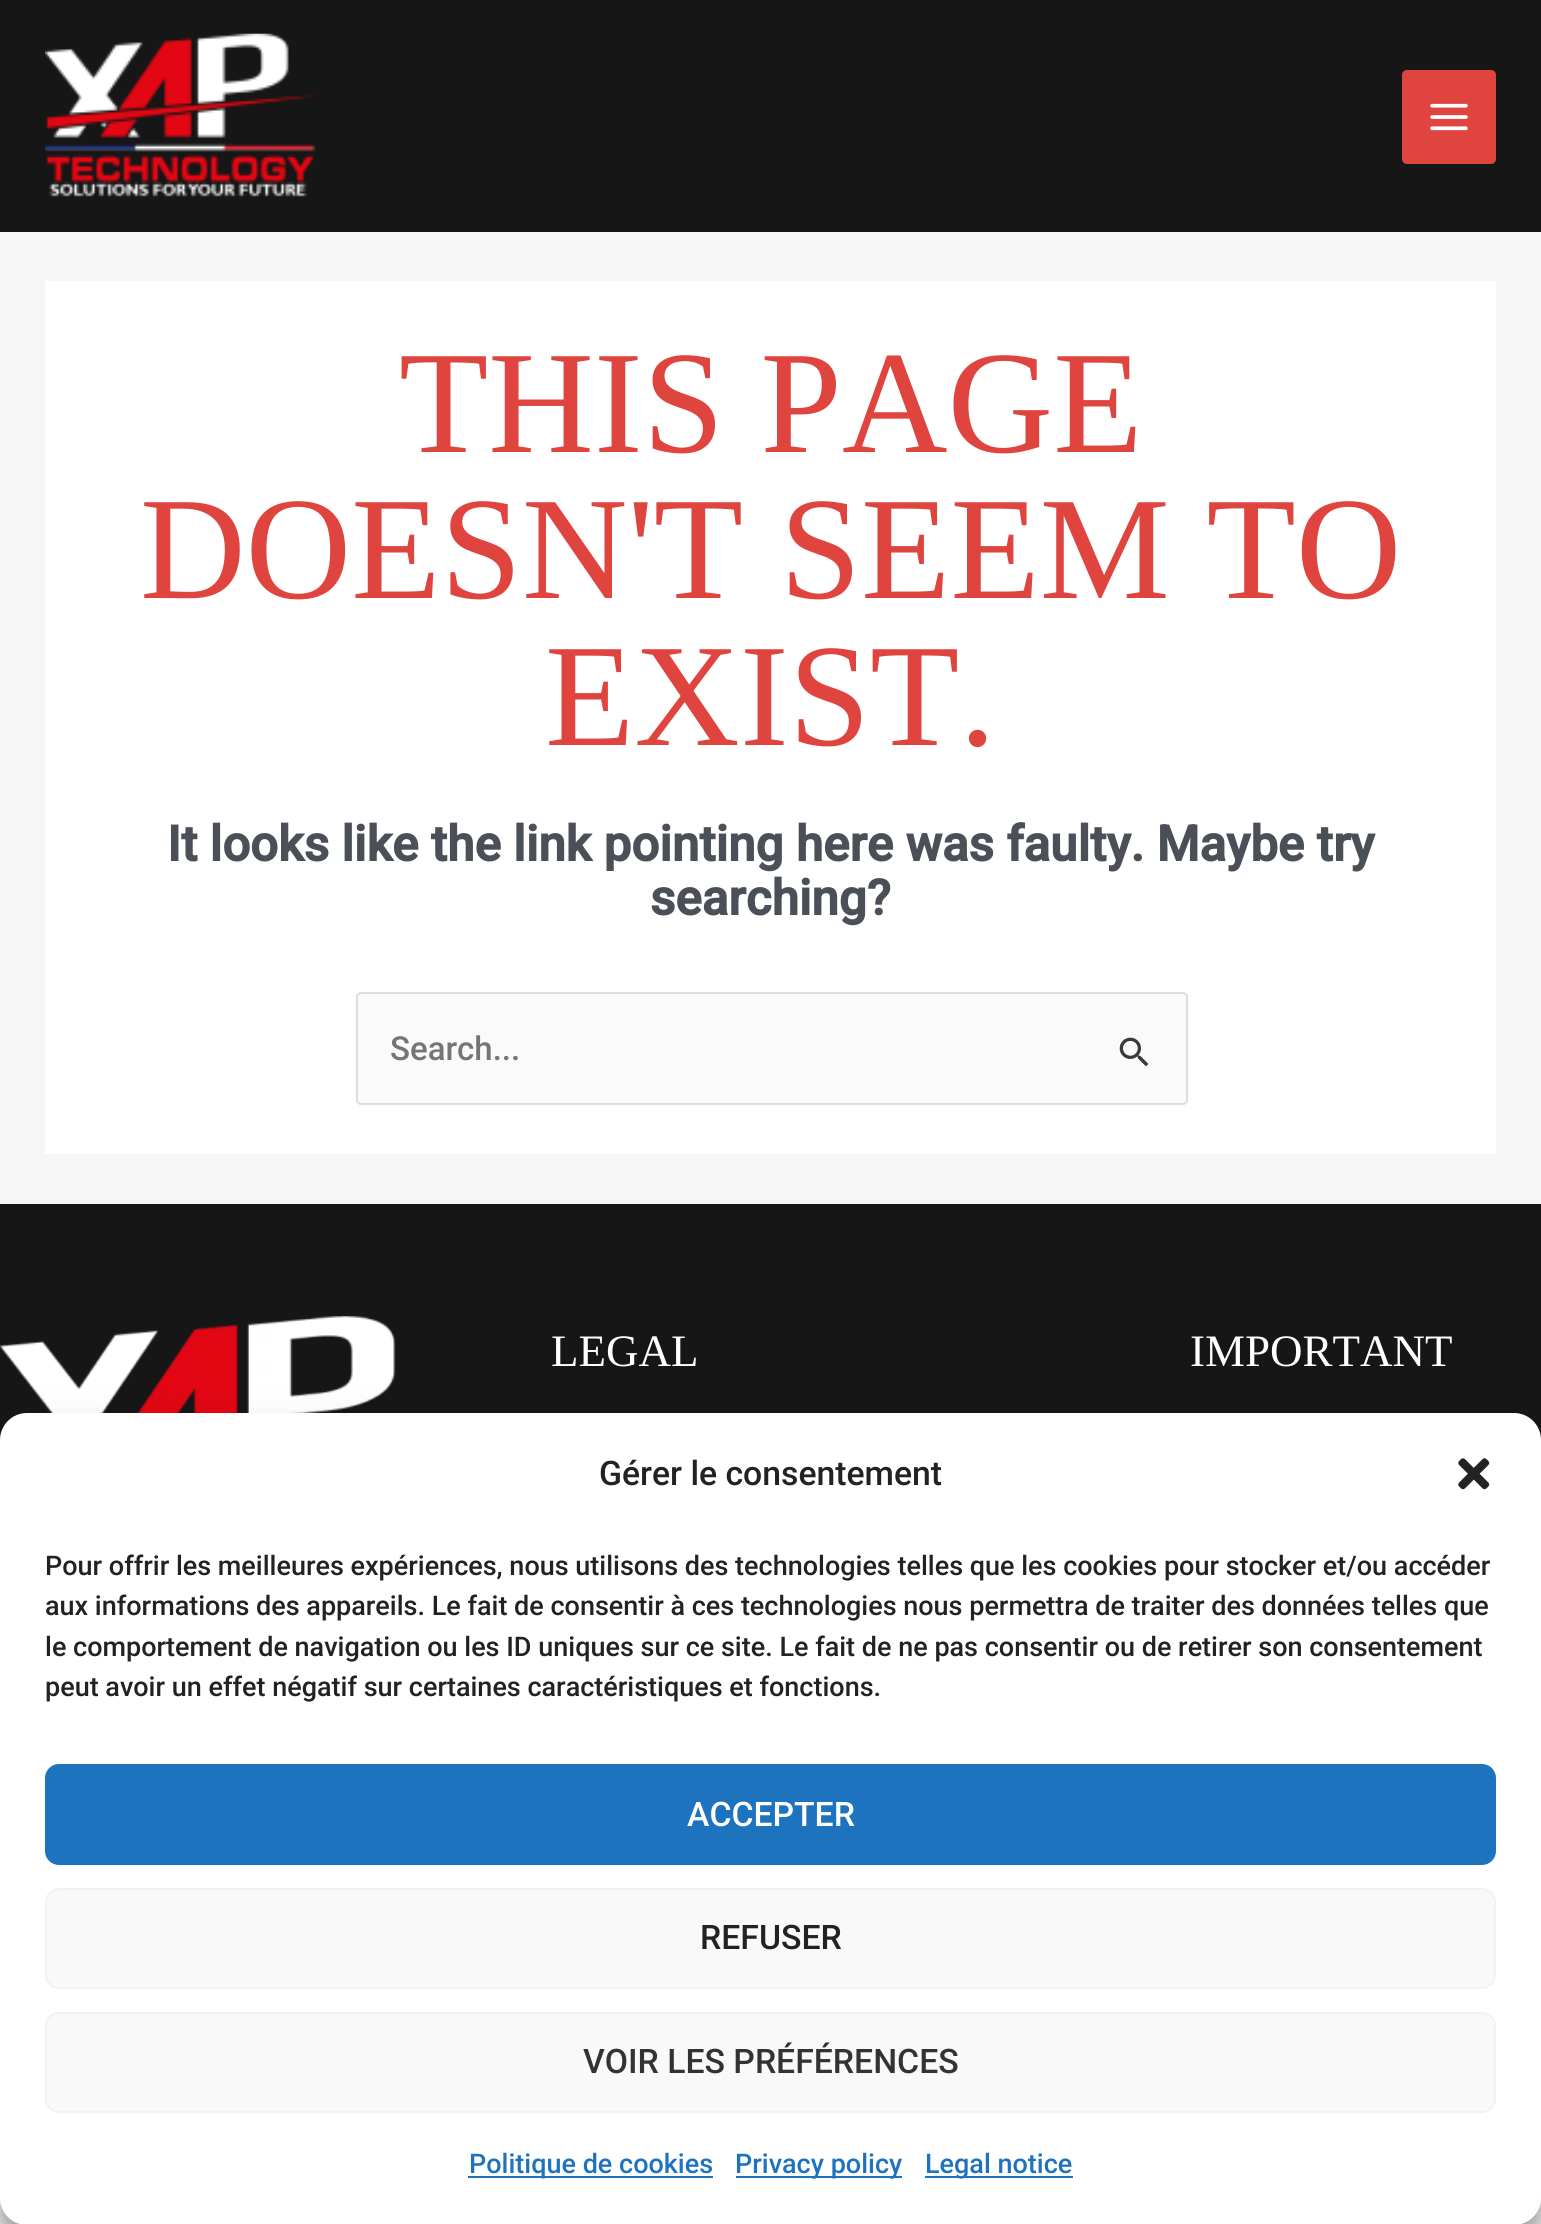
#include <cairo.h>
#include <math.h>
#include <stddef.h>


static void round_rect(cairo_t *cr, double x, double y, double w, double h, double r) {
    cairo_new_sub_path(cr);
    cairo_arc(cr, x + w - r, y + h - r, r, 0, M_PI / 2);
    cairo_arc(cr, x + r, y + h - r, r, M_PI / 2, M_PI);
    cairo_arc(cr, x + r, y + r, r, M_PI, 1.5 * M_PI);
    cairo_arc(cr, x + w - r, y + r, r, 1.5 * M_PI, 2 * M_PI);
    cairo_close_path(cr);
}

static void shadow(cairo_t *cr, double x, double y, double w, double h, double r, double blur, double alpha) {
    cairo_push_group_with_content(cr, CAIRO_CONTENT_ALPHA);
    cairo_set_operator(cr, CAIRO_OPERATOR_SOURCE);
    for (int i = 15; i >= -15 && fmin(w, h) + blur * i / 3 > 0; i -= 2) {
        double e = blur * i / 6;
        cairo_set_source_rgba(cr, 0, 0, 0, alpha * erfc((i - 1) / 8.5) / 2);
        round_rect(cr, x - e, y - e, w + 2 * e, h + 2 * e, fmax(0, fmin(r + e + blur * .6, fmin(w, h) / 2 + e)));
        cairo_fill(cr);
    }
    cairo_pattern_t *soft = cairo_pop_group(cr);
    cairo_mask(cr, soft);
    cairo_pattern_destroy(soft);
}

static void picture(cairo_t *cr, const char *path, double x, double y, double w, double h) {
    cairo_surface_t *image = cairo_image_surface_create_from_png(path);
    cairo_save(cr);
    cairo_set_source_surface(cr, image, x, y);
    cairo_rectangle(cr, x, y, w, h);
    cairo_fill(cr);
    cairo_restore(cr);
    cairo_surface_destroy(image);
}

int main(void) {
    cairo_surface_t *surface = cairo_image_surface_create(CAIRO_FORMAT_RGB24, 1541, 2224);
    cairo_t *cr = cairo_create(surface);
    cairo_font_options_t *options = cairo_font_options_create();
    cairo_font_options_set_hint_metrics(options, CAIRO_HINT_METRICS_OFF);
    cairo_font_options_set_hint_style(options, CAIRO_HINT_STYLE_NONE);
    cairo_set_font_options(cr, options);
    cairo_set_miter_limit(cr, 4);
    cairo_set_source_rgb(cr, 0.961, 0.961, 0.961);
    cairo_paint(cr);
    cairo_set_source_rgb(cr, 0.086, 0.086, 0.086);
    cairo_rectangle(cr, 0, 0, 1541, 232);
    cairo_fill(cr);
    picture(cr, "img1.png", 45, 33, 270, 164);
    cairo_set_source_rgb(cr, 0.875, 0.271, 0.243);
    round_rect(cr, 1402, 70, 94, 94, 5);
    cairo_fill(cr);
    picture(cr, "img2.png", 1430, 103, 38, 28);
    cairo_set_source_rgb(cr, 1, 1, 1);
    cairo_rectangle(cr, 45, 281, 1451, 873);
    cairo_fill(cr);
    cairo_select_font_face(cr, "Liberation Serif", CAIRO_FONT_SLANT_NORMAL, CAIRO_FONT_WEIGHT_NORMAL);
    cairo_set_font_size(cr, 146.25);
    cairo_set_source_rgb(cr, 0.875, 0.271, 0.243);
    cairo_move_to(cr, 399, 452);
    cairo_show_text(cr, "THIS PAGE");
    cairo_move_to(cr, 140, 598);
    cairo_show_text(cr, "DOESN'T SEEM TO");
    cairo_move_to(cr, 545, 745);
    cairo_show_text(cr, "EXIST.");
    cairo_select_font_face(cr, "Roboto", CAIRO_FONT_SLANT_NORMAL, CAIRO_FONT_WEIGHT_BOLD);
    cairo_set_font_size(cr, 49.25);
    cairo_set_source_rgb(cr, 0.294, 0.31, 0.345);
    cairo_move_to(cr, 167, 861);
    cairo_show_text(cr, "It looks like the link pointing here was faulty. Maybe try");
    cairo_move_to(cr, 650, 915);
    cairo_show_text(cr, "searching?");
    cairo_set_source_rgb(cr, 0.98, 0.98, 0.98);
    round_rect(cr, 357, 993, 830, 111, 4);
    cairo_fill_preserve(cr);
    cairo_set_source_rgb(cr, 0.867, 0.867, 0.867);
    cairo_stroke(cr);
    cairo_select_font_face(cr, "Roboto Medium", CAIRO_FONT_SLANT_NORMAL, CAIRO_FONT_WEIGHT_NORMAL);
    cairo_set_font_size(cr, 33);
    cairo_set_source_rgb(cr, 0.459, 0.459, 0.459);
    cairo_move_to(cr, 390, 1060);
    cairo_show_text(cr, "Search...");
    picture(cr, "img3.png", 1119, 1037, 30, 30);
    cairo_set_source_rgb(cr, 0.086, 0.086, 0.086);
    cairo_rectangle(cr, 0, 1204, 1541, 236);
    cairo_fill(cr);
    picture(cr, "img4.png", 0, 1316, 396, 97);
    cairo_select_font_face(cr, "Liberation Serif", CAIRO_FONT_SLANT_NORMAL, CAIRO_FONT_WEIGHT_NORMAL);
    cairo_set_font_size(cr, 45);
    cairo_set_source_rgb(cr, 1, 1, 1);
    cairo_move_to(cr, 551, 1366);
    cairo_show_text(cr, "LEGAL");
    cairo_move_to(cr, 1190, 1366);
    cairo_show_text(cr, "IMPORTANT");
    cairo_set_source_rgb(cr, 0, 0, 0);
    shadow(cr, 0, 1427, 1541, 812, 27, 7, 0.23);
    shadow(cr, 0, 1436, 1541, 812, 27, 22.5, 0.19);
    cairo_set_source_rgb(cr, 1, 1, 1);
    round_rect(cr, 0, 1413, 1541, 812, 27);
    cairo_fill(cr);
    cairo_select_font_face(cr, "Roboto Medium", CAIRO_FONT_SLANT_NORMAL, CAIRO_FONT_WEIGHT_NORMAL);
    cairo_set_font_size(cr, 33.75);
    cairo_set_source_rgb(cr, 0.133, 0.133, 0.133);
    cairo_move_to(cr, 599, 1485);
    cairo_show_text(cr, "Gérer le consentement");
    picture(cr, "img5.png", 1458, 1458, 32, 32);
    cairo_set_font_size(cr, 27);
    cairo_move_to(cr, 45, 1575);
    cairo_show_text(cr, "Pour offrir les meilleures expériences, nous utilisons des technologies telles que les cookies pour stocker et/ou accéder");
    cairo_move_to(cr, 45, 1615);
    cairo_show_text(cr, "aux informations des appareils. Le fait de consentir à ces technologies nous permettra de traiter des données telles que");
    cairo_move_to(cr, 45, 1656);
    cairo_show_text(cr, "le comportement de navigation ou les ID uniques sur ce site. Le fait de ne pas consentir ou de retirer son consentement");
    cairo_move_to(cr, 45, 1696);
    cairo_show_text(cr, "peut avoir un effet négatif sur certaines caractéristiques et fonctions.");
    cairo_set_source_rgb(cr, 0.118, 0.451, 0.745);
    round_rect(cr, 46, 1765, 1449, 99, 13);
    cairo_fill_preserve(cr);
    cairo_stroke(cr);
    cairo_set_font_size(cr, 33.75);
    cairo_set_source_rgb(cr, 1, 1, 1);
    cairo_move_to(cr, 687, 1826);
    cairo_show_text(cr, "ACCEPTER");
    cairo_set_source_rgb(cr, 0.976, 0.976, 0.976);
    round_rect(cr, 46, 1889, 1449, 99, 13);
    cairo_fill_preserve(cr);
    cairo_set_source_rgb(cr, 0.949, 0.949, 0.949);
    cairo_stroke(cr);
    cairo_set_source_rgb(cr, 0.133, 0.133, 0.133);
    cairo_move_to(cr, 700, 1949);
    cairo_show_text(cr, "REFUSER");
    cairo_set_source_rgb(cr, 0.976, 0.976, 0.976);
    round_rect(cr, 46, 2013, 1449, 99, 13);
    cairo_fill_preserve(cr);
    cairo_set_source_rgb(cr, 0.949, 0.949, 0.949);
    cairo_stroke(cr);
    cairo_set_source_rgb(cr, 0.2, 0.2, 0.2);
    cairo_move_to(cr, 583, 2073);
    cairo_show_text(cr, "VOIR LES PRÉFÉRENCES");
    cairo_set_source_rgb(cr, 0.118, 0.451, 0.745);
    cairo_rectangle(cr, 468, 2176, 245, 2);
    cairo_fill(cr);
    cairo_set_font_size(cr, 27);
    cairo_move_to(cr, 469, 2173);
    cairo_show_text(cr, "Politique de cookies");
    cairo_rectangle(cr, 736, 2176, 166, 2);
    cairo_fill(cr);
    cairo_move_to(cr, 735, 2173);
    cairo_show_text(cr, "Privacy policy");
    cairo_rectangle(cr, 925, 2176, 148, 2);
    cairo_fill(cr);
    cairo_move_to(cr, 925, 2173);
    cairo_show_text(cr, "Legal notice");
    cairo_surface_write_to_png(surface, "page.png");
    cairo_font_options_destroy(options);
    cairo_destroy(cr);
    cairo_surface_destroy(surface);
    return 0;
}
